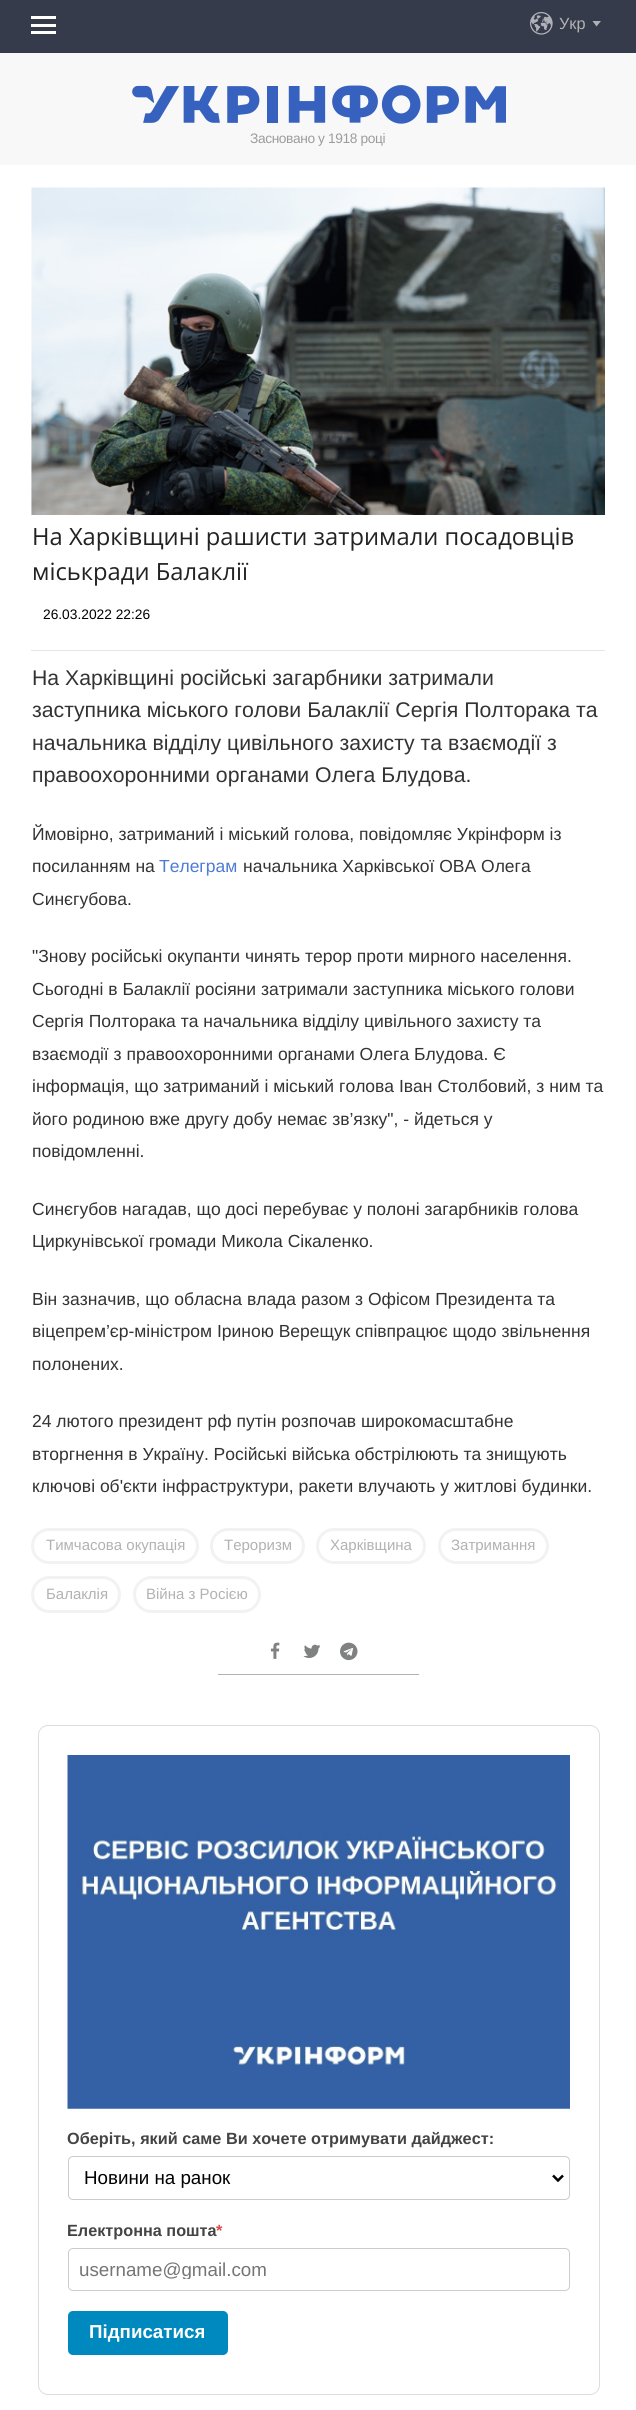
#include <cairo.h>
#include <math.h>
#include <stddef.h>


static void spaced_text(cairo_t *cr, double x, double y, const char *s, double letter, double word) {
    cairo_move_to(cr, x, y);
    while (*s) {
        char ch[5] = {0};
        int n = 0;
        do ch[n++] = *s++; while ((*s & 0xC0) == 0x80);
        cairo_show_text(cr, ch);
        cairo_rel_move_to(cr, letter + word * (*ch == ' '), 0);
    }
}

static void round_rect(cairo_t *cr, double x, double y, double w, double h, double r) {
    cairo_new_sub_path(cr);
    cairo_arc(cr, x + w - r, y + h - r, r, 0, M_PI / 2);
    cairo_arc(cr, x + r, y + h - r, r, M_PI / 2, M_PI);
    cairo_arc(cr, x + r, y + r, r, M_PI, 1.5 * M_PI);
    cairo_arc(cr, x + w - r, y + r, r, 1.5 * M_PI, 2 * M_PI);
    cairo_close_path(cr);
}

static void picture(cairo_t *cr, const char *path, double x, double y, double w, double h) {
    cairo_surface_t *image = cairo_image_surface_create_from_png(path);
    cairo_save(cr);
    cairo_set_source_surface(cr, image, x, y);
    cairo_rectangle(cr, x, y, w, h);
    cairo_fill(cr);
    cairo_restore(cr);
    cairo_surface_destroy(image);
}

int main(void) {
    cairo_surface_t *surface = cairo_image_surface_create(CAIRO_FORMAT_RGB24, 636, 2410);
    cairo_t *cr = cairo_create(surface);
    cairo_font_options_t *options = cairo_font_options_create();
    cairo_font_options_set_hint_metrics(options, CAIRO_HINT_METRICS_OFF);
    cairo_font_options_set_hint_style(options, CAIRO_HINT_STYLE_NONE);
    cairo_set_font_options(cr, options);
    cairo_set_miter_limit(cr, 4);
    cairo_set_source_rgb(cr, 1, 1, 1);
    cairo_paint(cr);
    cairo_set_source_rgb(cr, 0.969, 0.969, 0.969);
    cairo_rectangle(cr, 0, 53, 636, 112);
    cairo_fill(cr);
    cairo_set_source_rgb(cr, 0.208, 0.231, 0.294);
    cairo_rectangle(cr, 0, 0, 636, 53);
    cairo_fill(cr);
    cairo_set_source_rgb(cr, 1, 1, 1);
    cairo_rectangle(cr, 31, 16, 25, 3);
    cairo_fill(cr);
    cairo_rectangle(cr, 31, 31, 25, 3);
    cairo_fill(cr);
    cairo_rectangle(cr, 31, 24, 25, 3);
    cairo_fill(cr);
    picture(cr, "img1.png", 530, 11, 23, 24);
    cairo_set_source_rgb(cr, 0.682, 0.694, 0.718);
    cairo_new_path(cr);
    cairo_move_to(cr, 596.5, 26.5);
    cairo_line_to(cr, 592.5, 21);
    cairo_line_to(cr, 601, 21);
    cairo_close_path(cr);
    cairo_fill(cr);
    cairo_select_font_face(cr, "Liberation Sans", CAIRO_FONT_SLANT_NORMAL, CAIRO_FONT_WEIGHT_NORMAL);
    cairo_set_font_size(cr, 16.25);
    cairo_set_source_rgb(cr, 0.698, 0.698, 0.698);
    cairo_move_to(cr, 559, 29);
    cairo_show_text(cr, "Укр");
    picture(cr, "img2.png", 132, 85, 374, 39);
    cairo_set_font_size(cr, 13.75);
    cairo_set_source_rgb(cr, 0.612, 0.612, 0.612);
    spaced_text(cr, 250, 143, "Засновано у 1918 році", -0.4, 0);
    picture(cr, "img3.png", 31, 187, 574, 328);
    cairo_select_font_face(cr, "Open Sans", CAIRO_FONT_SLANT_NORMAL, CAIRO_FONT_WEIGHT_NORMAL);
    cairo_set_font_size(cr, 23.75);
    cairo_set_source_rgb(cr, 0.133, 0.133, 0.133);
    cairo_move_to(cr, 32, 545);
    cairo_show_text(cr, "На Харківщині рашисти затримали посадовців");
    cairo_move_to(cr, 32, 580);
    cairo_show_text(cr, "міськради Балаклії");
    cairo_select_font_face(cr, "Liberation Sans", CAIRO_FONT_SLANT_NORMAL, CAIRO_FONT_WEIGHT_NORMAL);
    cairo_set_font_size(cr, 13.75);
    cairo_set_source_rgb(cr, 0, 0, 0);
    cairo_move_to(cr, 43, 619);
    cairo_show_text(cr, "26.03.2022 22:26");
    cairo_set_source_rgb(cr, 0.898, 0.898, 0.898);
    cairo_rectangle(cr, 31, 650, 574, 1);
    cairo_fill(cr);
    cairo_set_font_size(cr, 21.25);
    cairo_set_source_rgb(cr, 0.2, 0.2, 0.2);
    cairo_move_to(cr, 32, 685);
    cairo_show_text(cr, "На Харківщині російські загарбники затримали");
    cairo_move_to(cr, 32, 717);
    cairo_show_text(cr, "заступника міського голови Балаклії Сергія Полторака та");
    cairo_move_to(cr, 32, 750);
    cairo_show_text(cr, "начальника відділу цивільного захисту та взаємодії з");
    cairo_move_to(cr, 32, 782);
    cairo_show_text(cr, "правоохоронними органами Олега Блудова.");
    cairo_set_font_size(cr, 17.5);
    cairo_move_to(cr, 32, 840);
    cairo_show_text(cr, "Ймовірно, затриманий і міський голова, повідомляє Укрінформ із");
    cairo_move_to(cr, 32, 872);
    cairo_show_text(cr, "посиланням на");
    cairo_set_source_rgb(cr, 0.302, 0.482, 0.839);
    cairo_move_to(cr, 159, 872);
    cairo_show_text(cr, "Телеграм");
    cairo_set_source_rgb(cr, 0.2, 0.2, 0.2);
    cairo_move_to(cr, 243, 872);
    cairo_show_text(cr, "начальника Харківської ОВА Олега");
    cairo_move_to(cr, 32, 905);
    cairo_show_text(cr, "Синєгубова.");
    cairo_move_to(cr, 32, 962);
    cairo_show_text(cr, "\"Знову російські окупанти чинять терор проти мирного населення.");
    cairo_move_to(cr, 32, 995);
    cairo_show_text(cr, "Сьогодні в Балаклії росіяни затримали заступника міського голови");
    cairo_move_to(cr, 32, 1027);
    cairo_show_text(cr, "Сергія Полторака та начальника відділу цивільного захисту та");
    cairo_move_to(cr, 32, 1060);
    cairo_show_text(cr, "взаємодії з правоохоронними органами Олега Блудова. Є");
    cairo_move_to(cr, 32, 1092);
    cairo_show_text(cr, "інформація, що затриманий і міський голова Іван Столбовий, з ним та");
    cairo_move_to(cr, 32, 1125);
    cairo_show_text(cr, "його родиною вже другу добу немає зв’язку\", - йдеться у");
    cairo_move_to(cr, 32, 1157);
    cairo_show_text(cr, "повідомленні.");
    cairo_move_to(cr, 32, 1215);
    cairo_show_text(cr, "Синєгубов нагадав, що досі перебуває у полоні загарбників голова");
    cairo_move_to(cr, 32, 1247);
    cairo_show_text(cr, "Циркунівської громади Микола Сікаленко.");
    cairo_move_to(cr, 32, 1305);
    cairo_show_text(cr, "Він зазначив, що обласна влада разом з Офісом Президента та");
    cairo_move_to(cr, 32, 1337);
    cairo_show_text(cr, "віцепрем’єр-міністром Іриною Верещук співпрацює щодо звільнення");
    cairo_move_to(cr, 32, 1370);
    cairo_show_text(cr, "полонених.");
    cairo_move_to(cr, 32, 1427);
    cairo_show_text(cr, "24 лютого президент рф путін розпочав широкомасштабне");
    cairo_move_to(cr, 32, 1460);
    cairo_show_text(cr, "вторгнення в Україну. Російські війська обстрілюють та знищують");
    cairo_move_to(cr, 32, 1492);
    cairo_show_text(cr, "ключові об'єкти інфраструктури, ракети влучають у житлові будинки.");
    round_rect(cr, 32.5, 1529.5, 165, 33, 16.5);
    cairo_set_source_rgb(cr, 0.949, 0.949, 0.949);
    cairo_set_line_width(cr, 3);
    cairo_stroke(cr);
    cairo_set_font_size(cr, 15);
    cairo_set_source_rgb(cr, 0.698, 0.698, 0.698);
    cairo_move_to(cr, 46, 1550);
    cairo_show_text(cr, "Тимчасова окупація");
    round_rect(cr, 211.5, 1529.5, 92, 33, 16.5);
    cairo_set_source_rgb(cr, 0.949, 0.949, 0.949);
    cairo_stroke(cr);
    cairo_set_source_rgb(cr, 0.698, 0.698, 0.698);
    cairo_move_to(cr, 224, 1550);
    cairo_show_text(cr, "Тероризм");
    round_rect(cr, 317.5, 1529.5, 107, 33, 16.5);
    cairo_set_source_rgb(cr, 0.949, 0.949, 0.949);
    cairo_stroke(cr);
    cairo_set_source_rgb(cr, 0.698, 0.698, 0.698);
    cairo_move_to(cr, 330, 1550);
    cairo_show_text(cr, "Харківщина");
    round_rect(cr, 439.5, 1529.5, 108, 33, 16.5);
    cairo_set_source_rgb(cr, 0.949, 0.949, 0.949);
    cairo_stroke(cr);
    cairo_set_source_rgb(cr, 0.698, 0.698, 0.698);
    cairo_move_to(cr, 451, 1550);
    cairo_show_text(cr, "Затримання");
    round_rect(cr, 32.5, 1577.5, 87, 34, 17);
    cairo_set_source_rgb(cr, 0.949, 0.949, 0.949);
    cairo_stroke(cr);
    cairo_set_source_rgb(cr, 0.698, 0.698, 0.698);
    cairo_move_to(cr, 46, 1599);
    cairo_show_text(cr, "Балаклія");
    round_rect(cr, 134.5, 1577.5, 125, 34, 17);
    cairo_set_source_rgb(cr, 0.949, 0.949, 0.949);
    cairo_stroke(cr);
    cairo_set_source_rgb(cr, 0.698, 0.698, 0.698);
    cairo_move_to(cr, 146, 1599);
    cairo_show_text(cr, "Війна з Росією");
    cairo_rectangle(cr, 218, 1674, 201, 1);
    cairo_fill(cr);
    picture(cr, "img4.png", 270, 1642, 10, 17);
    picture(cr, "img5.png", 303, 1644, 18, 14);
    picture(cr, "img6.png", 340, 1642, 18, 19);
    round_rect(cr, 38.5, 1725.5, 561, 669, 9.5);
    cairo_set_source_rgb(cr, 0.867, 0.867, 0.867);
    cairo_set_line_width(cr, 1);
    cairo_stroke(cr);
    picture(cr, "img7.png", 67, 1755, 503, 354);
    cairo_select_font_face(cr, "Liberation Sans", CAIRO_FONT_SLANT_NORMAL, CAIRO_FONT_WEIGHT_BOLD);
    cairo_set_font_size(cr, 16.25);
    cairo_set_source_rgb(cr, 0.267, 0.267, 0.267);
    cairo_move_to(cr, 67, 2144);
    cairo_show_text(cr, "Оберіть, який саме Ви хочете отримувати дайджест:");
    round_rect(cr, 68.5, 2156.5, 501, 43, 4.5);
    cairo_set_source_rgb(cr, 0.8, 0.8, 0.8);
    cairo_stroke(cr);
    cairo_new_path(cr);
    cairo_move_to(cr, 553, 2175.5);
    cairo_line_to(cr, 558, 2180.5);
    cairo_line_to(cr, 563, 2175.5);
    cairo_set_source_rgb(cr, 0, 0, 0);
    cairo_set_line_width(cr, 2.5);
    cairo_stroke(cr);
    cairo_select_font_face(cr, "Liberation Sans", CAIRO_FONT_SLANT_NORMAL, CAIRO_FONT_WEIGHT_NORMAL);
    cairo_set_font_size(cr, 18.75);
    cairo_move_to(cr, 84, 2184);
    cairo_show_text(cr, "Новини на ранок");
    cairo_select_font_face(cr, "Liberation Sans", CAIRO_FONT_SLANT_NORMAL, CAIRO_FONT_WEIGHT_BOLD);
    cairo_set_font_size(cr, 16.25);
    cairo_set_source_rgb(cr, 0.267, 0.267, 0.267);
    cairo_move_to(cr, 67, 2236);
    cairo_show_text(cr, "Електронна пошта");
    cairo_set_source_rgb(cr, 0.851, 0.294, 0.302);
    cairo_move_to(cr, 216, 2236);
    cairo_show_text(cr, "*");
    round_rect(cr, 68.5, 2248.5, 501, 42, 4.5);
    cairo_set_source_rgb(cr, 0.8, 0.8, 0.8);
    cairo_set_line_width(cr, 1);
    cairo_stroke(cr);
    cairo_save(cr);
    cairo_rectangle(cr, 79, 2258, 479, 21);
    cairo_clip(cr);
    cairo_select_font_face(cr, "Liberation Sans", CAIRO_FONT_SLANT_NORMAL, CAIRO_FONT_WEIGHT_NORMAL);
    cairo_set_font_size(cr, 18.75);
    cairo_set_source_rgb(cr, 0.459, 0.459, 0.459);
    cairo_move_to(cr, 79, 2276);
    cairo_show_text(cr, "username@gmail.com");
    cairo_restore(cr);
    cairo_set_source_rgb(cr, 0, 0.537, 0.749);
    round_rect(cr, 68, 2311, 160, 44, 5);
    cairo_fill(cr);
    cairo_set_font_size(cr, 18.75);
    cairo_set_source_rgb(cr, 1, 1, 1);
    cairo_move_to(cr, 89, 2338);
    cairo_show_text(cr, "Підписатися");
    cairo_surface_write_to_png(surface, "page.png");
    cairo_font_options_destroy(options);
    cairo_destroy(cr);
    cairo_surface_destroy(surface);
    return 0;
}
